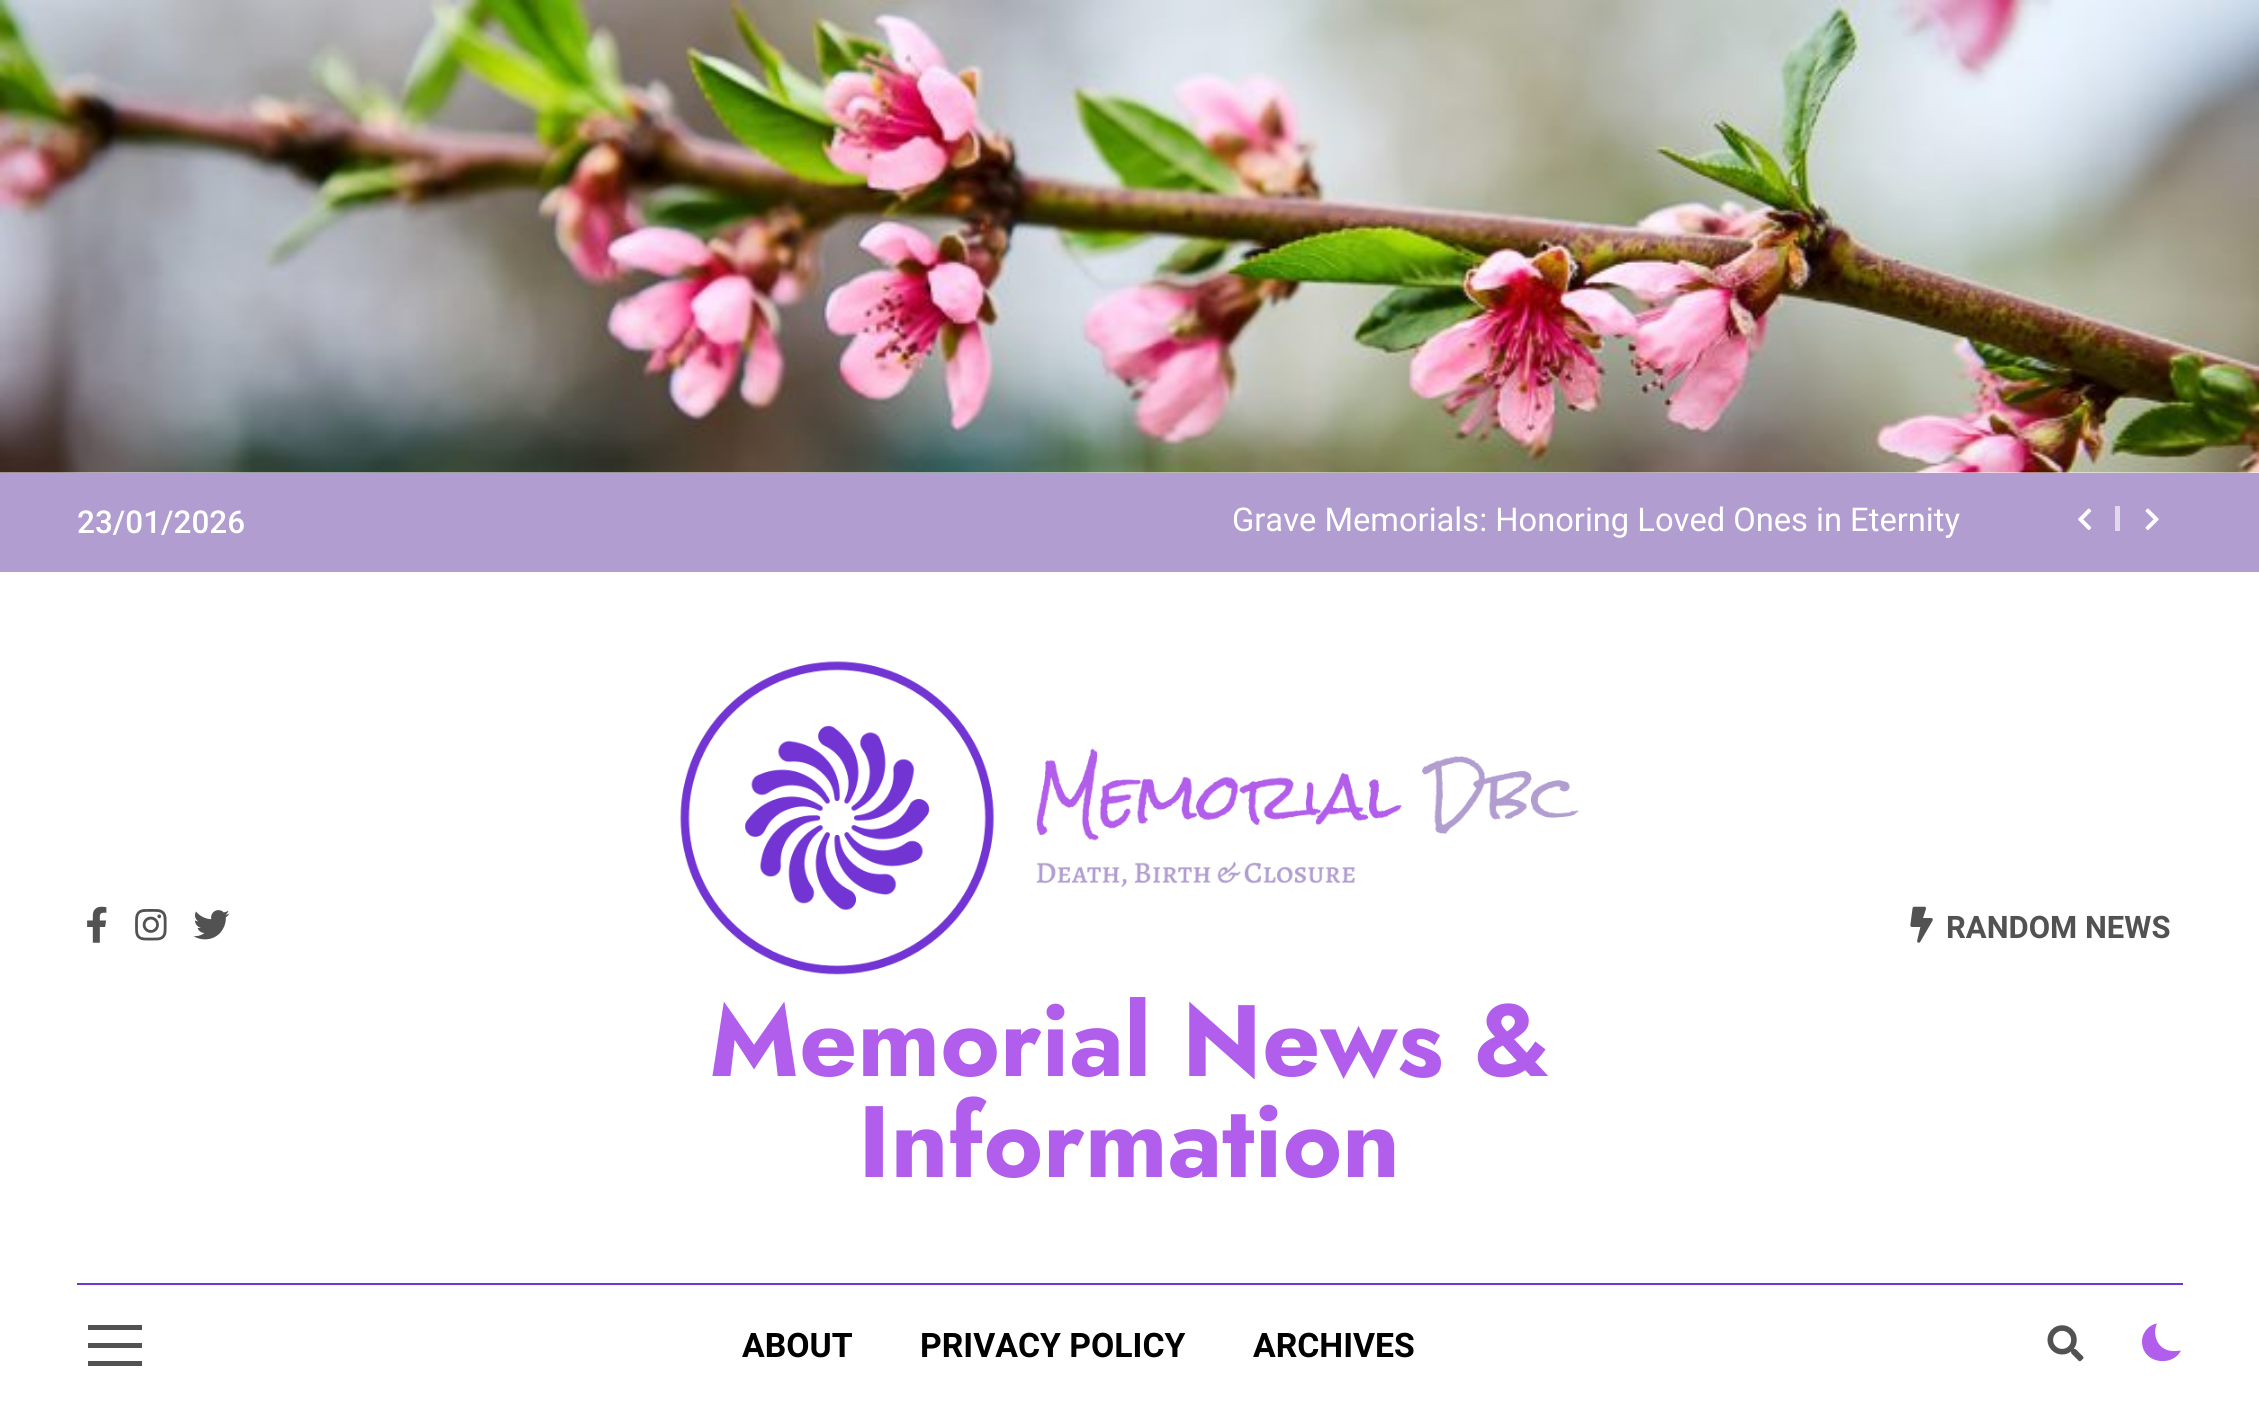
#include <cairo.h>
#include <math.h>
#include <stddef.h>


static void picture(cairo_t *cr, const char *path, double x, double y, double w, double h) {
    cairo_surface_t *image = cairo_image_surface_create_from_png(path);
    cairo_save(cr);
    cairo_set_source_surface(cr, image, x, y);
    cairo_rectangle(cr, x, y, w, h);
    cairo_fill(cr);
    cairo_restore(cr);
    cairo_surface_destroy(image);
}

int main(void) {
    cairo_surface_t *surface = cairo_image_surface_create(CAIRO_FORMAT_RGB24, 2259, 1414);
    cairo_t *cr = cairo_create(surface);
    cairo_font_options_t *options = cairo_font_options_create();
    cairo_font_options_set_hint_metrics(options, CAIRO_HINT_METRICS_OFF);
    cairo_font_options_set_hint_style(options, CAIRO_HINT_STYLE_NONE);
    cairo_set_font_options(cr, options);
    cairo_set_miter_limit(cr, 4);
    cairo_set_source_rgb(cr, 1, 1, 1);
    cairo_paint(cr);
    picture(cr, "img1.png", 0, 0, 2259, 473);
    cairo_set_source_rgb(cr, 0.694, 0.616, 0.816);
    cairo_rectangle(cr, 0, 473, 2259, 99);
    cairo_fill(cr);
    cairo_select_font_face(cr, "Roboto Medium", CAIRO_FONT_SLANT_NORMAL, CAIRO_FONT_WEIGHT_NORMAL);
    cairo_set_font_size(cr, 31.5);
    cairo_set_source_rgb(cr, 1, 1, 1);
    cairo_move_to(cr, 77, 533);
    cairo_show_text(cr, "23/01/2026");
    cairo_select_font_face(cr, "Roboto", CAIRO_FONT_SLANT_NORMAL, CAIRO_FONT_WEIGHT_NORMAL);
    cairo_set_font_size(cr, 32.7);
    cairo_move_to(cr, 1232, 531);
    cairo_show_text(cr, "Grave Memorials: Honoring Loved Ones in Eternity");
    picture(cr, "img2.png", 2078, 508, 14, 22);
    cairo_set_source_rgb(cr, 0.878, 0.847, 0.925);
    cairo_rectangle(cr, 2115, 506, 5, 25);
    cairo_fill(cr);
    picture(cr, "img3.png", 2145, 508, 14, 22);
    picture(cr, "img4.png", 87, 906, 20, 37);
    picture(cr, "img5.png", 135, 909, 32, 32);
    picture(cr, "img6.png", 193, 910, 37, 30);
    picture(cr, "img7.png", 1910, 906, 23, 37);
    cairo_select_font_face(cr, "Roboto", CAIRO_FONT_SLANT_NORMAL, CAIRO_FONT_WEIGHT_BOLD);
    cairo_set_font_size(cr, 31);
    cairo_set_source_rgb(cr, 0.322, 0.322, 0.322);
    cairo_move_to(cr, 1946, 938);
    cairo_show_text(cr, "RANDOM NEWS");
    picture(cr, "img8.png", 680, 661, 899, 314);
    cairo_select_font_face(cr, "Jost", CAIRO_FONT_SLANT_NORMAL, CAIRO_FONT_WEIGHT_BOLD);
    cairo_set_font_size(cr, 101.25);
    cairo_set_source_rgb(cr, 0.698, 0.369, 0.922);
    cairo_move_to(cr, 709, 1076);
    cairo_show_text(cr, "Memorial News &");
    cairo_move_to(cr, 858, 1177);
    cairo_show_text(cr, "Information");
    cairo_set_source_rgb(cr, 0.451, 0.204, 0.831);
    cairo_rectangle(cr, 77, 1283, 2106, 2);
    cairo_fill(cr);
    cairo_set_source_rgb(cr, 0.322, 0.322, 0.322);
    cairo_rectangle(cr, 88, 1325, 54, 5);
    cairo_fill(cr);
    cairo_rectangle(cr, 88, 1343, 54, 5);
    cairo_fill(cr);
    cairo_rectangle(cr, 88, 1361, 54, 5);
    cairo_fill(cr);
    cairo_select_font_face(cr, "Roboto", CAIRO_FONT_SLANT_NORMAL, CAIRO_FONT_WEIGHT_BOLD);
    cairo_set_font_size(cr, 33.75);
    cairo_set_source_rgb(cr, 0, 0, 0);
    cairo_move_to(cr, 742, 1357);
    cairo_show_text(cr, "ABOUT");
    cairo_move_to(cr, 920, 1357);
    cairo_show_text(cr, "PRIVACY POLICY");
    cairo_move_to(cr, 1253, 1357);
    cairo_show_text(cr, "ARCHIVES");
    picture(cr, "img9.png", 2047, 1325, 37, 37);
    cairo_set_source_rgb(cr, 0.698, 0.369, 0.922);
    cairo_new_path(cr);
    cairo_move_to(cr, 2181, 1350.5);
    cairo_line_to(cr, 2176, 1351);
    cairo_curve_to(cr, 2158, 1352.5, 2151.5, 1335, 2157, 1323.5);
    cairo_curve_to(cr, 2151.5, 1324.5, 2147, 1328, 2144.5, 1332.5);
    cairo_curve_to(cr, 2142, 1336.5, 2141.5, 1341.5, 2142.5, 1346);
    cairo_curve_to(cr, 2146, 1364, 2173, 1366.5, 2181, 1350.5);
    cairo_close_path(cr);
    cairo_fill(cr);
    cairo_surface_write_to_png(surface, "page.png");
    cairo_font_options_destroy(options);
    cairo_destroy(cr);
    cairo_surface_destroy(surface);
    return 0;
}
